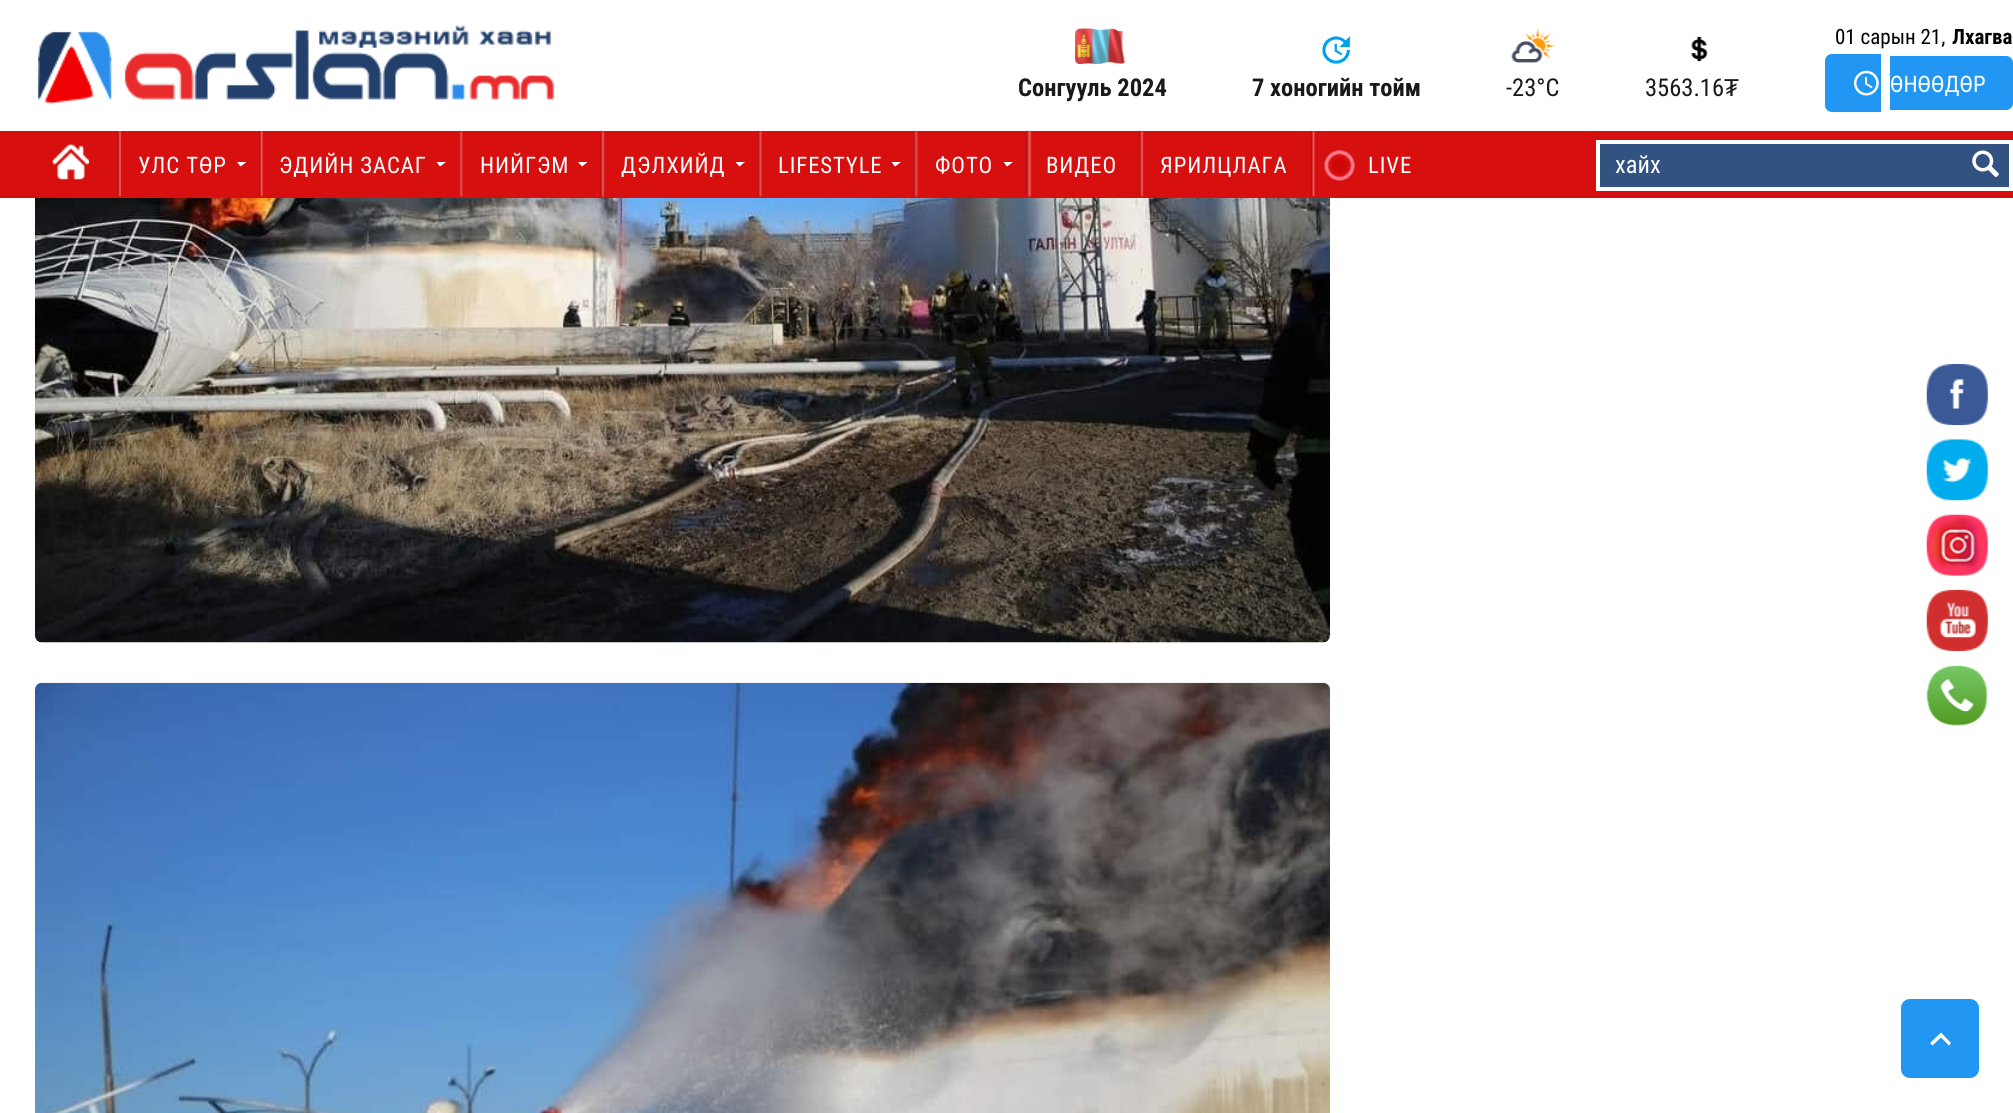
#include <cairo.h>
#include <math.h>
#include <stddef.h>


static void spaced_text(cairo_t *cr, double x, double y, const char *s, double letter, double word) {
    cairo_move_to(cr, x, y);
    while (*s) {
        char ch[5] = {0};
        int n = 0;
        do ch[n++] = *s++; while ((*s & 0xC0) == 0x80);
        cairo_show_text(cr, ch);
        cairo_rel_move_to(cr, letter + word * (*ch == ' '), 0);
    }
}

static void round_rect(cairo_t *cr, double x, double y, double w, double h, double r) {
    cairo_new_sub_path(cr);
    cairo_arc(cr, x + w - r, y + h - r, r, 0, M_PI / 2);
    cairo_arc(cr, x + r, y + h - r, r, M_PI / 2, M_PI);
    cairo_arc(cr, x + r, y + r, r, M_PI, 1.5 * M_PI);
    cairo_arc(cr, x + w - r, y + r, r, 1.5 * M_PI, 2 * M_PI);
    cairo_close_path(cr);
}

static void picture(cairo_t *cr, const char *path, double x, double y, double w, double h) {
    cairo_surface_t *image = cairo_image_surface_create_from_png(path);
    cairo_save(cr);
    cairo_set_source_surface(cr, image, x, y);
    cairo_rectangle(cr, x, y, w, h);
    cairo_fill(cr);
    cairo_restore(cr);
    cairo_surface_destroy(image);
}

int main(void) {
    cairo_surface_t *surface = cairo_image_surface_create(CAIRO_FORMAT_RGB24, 2013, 1113);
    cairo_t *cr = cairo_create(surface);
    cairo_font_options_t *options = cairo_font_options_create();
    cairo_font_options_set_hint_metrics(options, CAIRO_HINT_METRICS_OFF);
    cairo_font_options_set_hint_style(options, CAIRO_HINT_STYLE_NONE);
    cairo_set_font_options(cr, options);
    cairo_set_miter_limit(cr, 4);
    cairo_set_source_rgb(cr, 1, 1, 1);
    cairo_paint(cr);
    picture(cr, "img1.png", 37, 25, 518, 80);
    picture(cr, "img2.png", 1075, 28, 51, 37);
    cairo_select_font_face(cr, "Roboto Condensed", CAIRO_FONT_SLANT_NORMAL, CAIRO_FONT_WEIGHT_BOLD);
    cairo_set_font_size(cr, 24.5);
    cairo_set_source_rgb(cr, 0.098, 0.098, 0.102);
    cairo_move_to(cr, 1018, 96);
    cairo_show_text(cr, "Сонгууль 2024");
    picture(cr, "img3.png", 1322, 36, 28, 28);
    cairo_move_to(cr, 1252, 96);
    cairo_show_text(cr, "7 хоногийн тойм");
    picture(cr, "img4.png", 1511, 27, 45, 36);
    cairo_select_font_face(cr, "Roboto Condensed", CAIRO_FONT_SLANT_NORMAL, CAIRO_FONT_WEIGHT_NORMAL);
    cairo_move_to(cr, 1506, 96);
    cairo_show_text(cr, "-23°C");
    picture(cr, "img5.png", 1690, 36, 18, 26);
    cairo_move_to(cr, 1645, 96);
    cairo_show_text(cr, "3563.16");
    cairo_select_font_face(cr, "Liberation Sans", CAIRO_FONT_SLANT_NORMAL, CAIRO_FONT_WEIGHT_NORMAL);
    cairo_move_to(cr, 1724, 96);
    cairo_show_text(cr, "₮");
    cairo_select_font_face(cr, "Roboto Condensed", CAIRO_FONT_SLANT_NORMAL, CAIRO_FONT_WEIGHT_NORMAL);
    cairo_set_font_size(cr, 21);
    cairo_set_source_rgb(cr, 0, 0, 0);
    cairo_move_to(cr, 1835, 44);
    cairo_show_text(cr, "01 сарын 21,");
    cairo_select_font_face(cr, "Roboto Condensed", CAIRO_FONT_SLANT_NORMAL, CAIRO_FONT_WEIGHT_BOLD);
    cairo_move_to(cr, 1952, 44);
    cairo_show_text(cr, "Лхагва");
    cairo_set_source_rgb(cr, 0.129, 0.588, 0.953);
    cairo_new_path(cr);
    cairo_move_to(cr, 1832, 54);
    cairo_line_to(cr, 1881, 54);
    cairo_line_to(cr, 1881, 112);
    cairo_line_to(cr, 1832, 112);
    cairo_curve_to(cr, 1828, 112, 1825, 109, 1825, 105);
    cairo_line_to(cr, 1825, 61);
    cairo_curve_to(cr, 1825, 57, 1828, 54, 1832, 54);
    cairo_close_path(cr);
    cairo_fill(cr);
    cairo_new_path(cr);
    cairo_move_to(cr, 1890, 56);
    cairo_line_to(cr, 2006, 56);
    cairo_curve_to(cr, 2010, 56, 2013, 59, 2013, 63);
    cairo_line_to(cr, 2013, 103);
    cairo_curve_to(cr, 2013, 107, 2010, 110, 2006, 110);
    cairo_line_to(cr, 1890, 110);
    cairo_close_path(cr);
    cairo_fill(cr);
    picture(cr, "img6.png", 1854, 70, 25, 26);
    cairo_select_font_face(cr, "Roboto Condensed", CAIRO_FONT_SLANT_NORMAL, CAIRO_FONT_WEIGHT_NORMAL);
    cairo_set_font_size(cr, 22.75);
    cairo_set_source_rgb(cr, 1, 1, 1);
    cairo_move_to(cr, 1890, 92);
    cairo_show_text(cr, "ӨНӨӨДӨР");
    cairo_set_source_rgb(cr, 0.843, 0.059, 0.059);
    cairo_rectangle(cr, 0, 131, 2013, 67);
    cairo_fill(cr);
    picture(cr, "img7.png", 52, 144, 38, 36);
    picture(cr, "img8.png", 117, 131, 4, 65);
    cairo_set_source_rgb(cr, 1, 1, 1);
    spaced_text(cr, 138, 173, "УЛС ТӨР", 0.9, 0);
    cairo_new_path(cr);
    cairo_move_to(cr, 237, 162);
    cairo_line_to(cr, 246.5, 162);
    cairo_line_to(cr, 240.5, 166.5);
    cairo_close_path(cr);
    cairo_fill(cr);
    picture(cr, "img9.png", 259, 131, 4, 65);
    spaced_text(cr, 279, 173, "ЭДИЙН ЗАСАГ", 0.9, 0);
    cairo_new_path(cr);
    cairo_move_to(cr, 436.5, 162);
    cairo_line_to(cr, 446, 162);
    cairo_line_to(cr, 440, 166.5);
    cairo_close_path(cr);
    cairo_fill(cr);
    picture(cr, "img10.png", 459, 130, 4, 67);
    spaced_text(cr, 480, 173, "НИЙГЭМ", 0.9, 0);
    cairo_new_path(cr);
    cairo_move_to(cr, 578, 162);
    cairo_line_to(cr, 587.5, 162);
    cairo_line_to(cr, 582, 166.5);
    cairo_close_path(cr);
    cairo_fill(cr);
    picture(cr, "img11.png", 599, 130, 6, 67);
    spaced_text(cr, 621, 173, "ДЭЛХИЙД", 0.9, 0);
    cairo_new_path(cr);
    cairo_move_to(cr, 735.5, 162);
    cairo_line_to(cr, 745, 162);
    cairo_line_to(cr, 739.5, 166.5);
    cairo_close_path(cr);
    cairo_fill(cr);
    picture(cr, "img12.png", 757, 130, 5, 67);
    spaced_text(cr, 778, 173, "LIFESTYLE", 0.9, 0);
    cairo_new_path(cr);
    cairo_move_to(cr, 891.5, 162);
    cairo_line_to(cr, 901, 162);
    cairo_line_to(cr, 895, 166.5);
    cairo_close_path(cr);
    cairo_fill(cr);
    picture(cr, "img13.png", 913, 130, 5, 67);
    spaced_text(cr, 935, 173, "ФОТО", 0.9, 0);
    cairo_new_path(cr);
    cairo_move_to(cr, 1003.5, 162);
    cairo_line_to(cr, 1013, 162);
    cairo_line_to(cr, 1007, 166.5);
    cairo_close_path(cr);
    cairo_fill(cr);
    picture(cr, "img14.png", 1025, 130, 7, 67);
    spaced_text(cr, 1046, 173, "ВИДЕО", 0.9, 0);
    picture(cr, "img11.png", 1138, 130, 6, 67);
    spaced_text(cr, 1160, 173, "ЯРИЛЦЛАГА", 0.9, 0);
    picture(cr, "img15.png", 1310, 130, 5, 66);
    picture(cr, "img16.png", 1324, 150, 31, 31);
    spaced_text(cr, 1368, 173, "LIVE", 0.9, 0);
    cairo_set_source_rgb(cr, 0.196, 0.322, 0.51);
    cairo_rectangle(cr, 1598, 142, 413, 47);
    cairo_fill_preserve(cr);
    cairo_set_source_rgb(cr, 1, 1, 1);
    cairo_set_line_width(cr, 4);
    cairo_stroke(cr);
    cairo_set_font_size(cr, 24.5);
    cairo_move_to(cr, 1615, 173);
    cairo_show_text(cr, "хайх");
    picture(cr, "img17.png", 1972, 150, 27, 28);
    picture(cr, "img18.png", 35, 198, 1295, 445);
    picture(cr, "img19.png", 35, 682, 1295, 431);
    picture(cr, "img20.png", 1926, 364, 63, 62);
    picture(cr, "img21.png", 1926, 439, 63, 62);
    picture(cr, "img22.png", 1926, 514, 63, 62);
    picture(cr, "img23.png", 1926, 589, 63, 62);
    picture(cr, "img24.png", 1926, 665, 62, 61);
    cairo_set_source_rgb(cr, 0.129, 0.588, 0.953);
    round_rect(cr, 1901, 999, 78, 79, 9);
    cairo_fill(cr);
    cairo_set_source_rgb(cr, 1, 1, 1);
    cairo_new_path(cr);
    cairo_move_to(cr, 1932.5, 1045.5);
    cairo_line_to(cr, 1930, 1043);
    cairo_line_to(cr, 1941, 1032.5);
    cairo_line_to(cr, 1951, 1043);
    cairo_line_to(cr, 1949, 1045.5);
    cairo_line_to(cr, 1941, 1037.5);
    cairo_close_path(cr);
    cairo_fill(cr);
    cairo_surface_write_to_png(surface, "page.png");
    cairo_font_options_destroy(options);
    cairo_destroy(cr);
    cairo_surface_destroy(surface);
    return 0;
}
